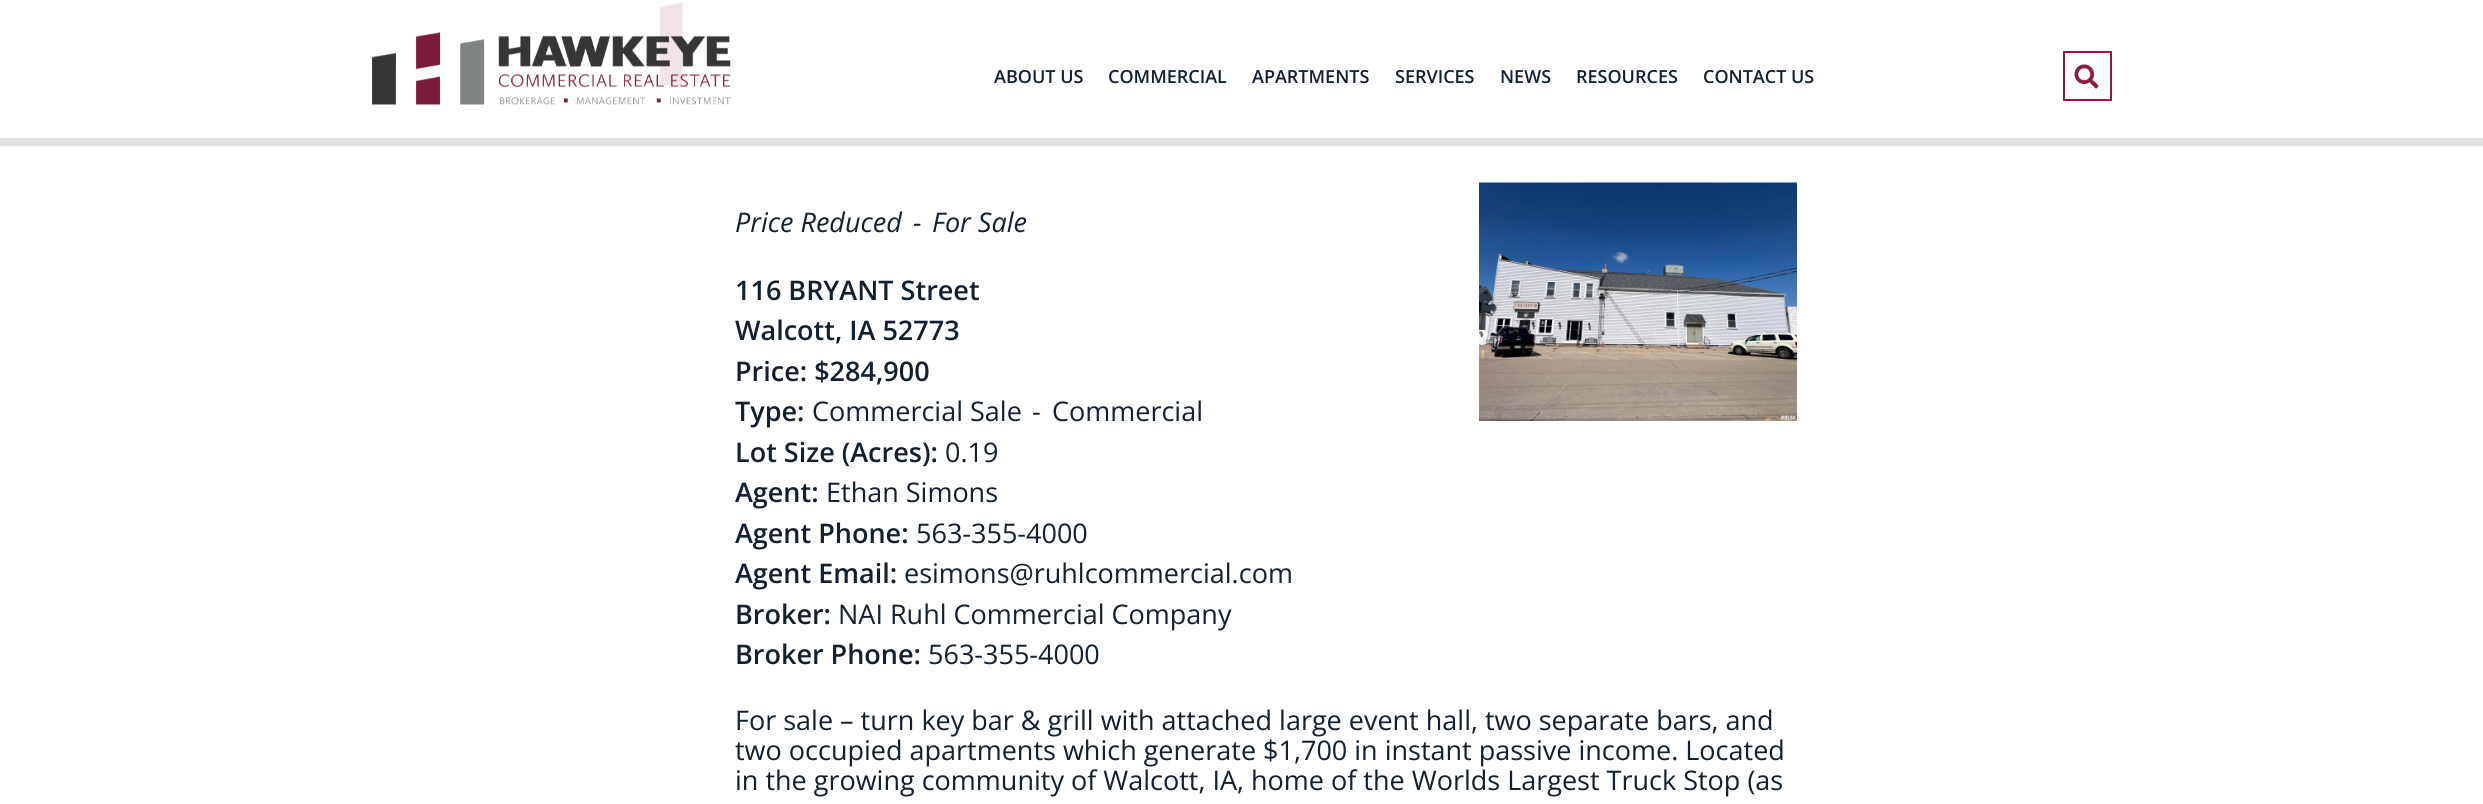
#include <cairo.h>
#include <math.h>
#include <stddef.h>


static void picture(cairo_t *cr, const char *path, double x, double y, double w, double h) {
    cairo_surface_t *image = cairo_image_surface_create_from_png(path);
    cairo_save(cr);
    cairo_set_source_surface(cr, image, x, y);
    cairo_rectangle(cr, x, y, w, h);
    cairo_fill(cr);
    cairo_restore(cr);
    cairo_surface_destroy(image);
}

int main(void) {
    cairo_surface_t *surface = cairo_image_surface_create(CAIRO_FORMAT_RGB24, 2483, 804);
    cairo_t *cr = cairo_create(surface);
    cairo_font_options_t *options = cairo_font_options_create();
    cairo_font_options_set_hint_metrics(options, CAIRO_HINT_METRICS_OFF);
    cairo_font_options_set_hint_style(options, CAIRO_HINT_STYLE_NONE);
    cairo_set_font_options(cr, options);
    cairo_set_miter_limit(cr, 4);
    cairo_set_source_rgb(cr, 1, 1, 1);
    cairo_paint(cr);
    picture(cr, "img3.png", 660, 2, 23, 83);
    cairo_set_source_rgba(cr, 1, 1, 1, 0.88);
    cairo_rectangle(cr, 660, 2, 23, 83);
    cairo_fill(cr);
    picture(cr, "img1.png", 372, 32, 359, 73);
    cairo_select_font_face(cr, "Open Sans SemiBold", CAIRO_FONT_SLANT_NORMAL, CAIRO_FONT_WEIGHT_NORMAL);
    cairo_set_font_size(cr, 18);
    cairo_set_source_rgb(cr, 0.071, 0.125, 0.184);
    cairo_move_to(cr, 994, 83);
    cairo_show_text(cr, "ABOUT US");
    cairo_move_to(cr, 1108, 83);
    cairo_show_text(cr, "COMMERCIAL");
    cairo_move_to(cr, 1252, 83);
    cairo_show_text(cr, "APARTMENTS");
    cairo_move_to(cr, 1395, 83);
    cairo_show_text(cr, "SERVICES");
    cairo_move_to(cr, 1500, 83);
    cairo_show_text(cr, "NEWS");
    cairo_move_to(cr, 1576, 83);
    cairo_show_text(cr, "RESOURCES");
    cairo_move_to(cr, 1703, 83);
    cairo_show_text(cr, "CONTACT US");
    cairo_rectangle(cr, 2064, 52, 47, 48);
    cairo_set_source_rgb(cr, 0.549, 0.11, 0.255);
    cairo_stroke(cr);
    picture(cr, "img2.png", 2074, 64, 25, 25);
    cairo_set_source_rgba(cr, 0.553, 0.525, 0.486, 0.25);
    cairo_rectangle(cr, 0, 138, 2483, 8);
    cairo_fill(cr);
    cairo_select_font_face(cr, "Open Sans", CAIRO_FONT_SLANT_ITALIC, CAIRO_FONT_WEIGHT_NORMAL);
    cairo_set_font_size(cr, 27);
    cairo_set_source_rgb(cr, 0.071, 0.125, 0.184);
    cairo_move_to(cr, 735, 232);
    cairo_show_text(cr, "Price Reduced");
    cairo_move_to(cr, 913, 232);
    cairo_show_text(cr, "-");
    cairo_move_to(cr, 932, 232);
    cairo_show_text(cr, "For Sale");
    picture(cr, "img4.png", 1479, 182, 318, 239);
    cairo_select_font_face(cr, "Open Sans SemiBold", CAIRO_FONT_SLANT_NORMAL, CAIRO_FONT_WEIGHT_NORMAL);
    cairo_move_to(cr, 735, 300);
    cairo_show_text(cr, "116 BRYANT Street");
    cairo_move_to(cr, 735, 340);
    cairo_show_text(cr, "Walcott, IA 52773");
    cairo_move_to(cr, 735, 381);
    cairo_show_text(cr, "Price: $284,900");
    cairo_move_to(cr, 735, 421);
    cairo_show_text(cr, "Type:");
    cairo_select_font_face(cr, "Open Sans", CAIRO_FONT_SLANT_NORMAL, CAIRO_FONT_WEIGHT_NORMAL);
    cairo_move_to(cr, 812, 421);
    cairo_show_text(cr, "Commercial Sale");
    cairo_move_to(cr, 1032, 421);
    cairo_show_text(cr, "-");
    cairo_move_to(cr, 1052, 421);
    cairo_show_text(cr, "Commercial");
    cairo_select_font_face(cr, "Open Sans SemiBold", CAIRO_FONT_SLANT_NORMAL, CAIRO_FONT_WEIGHT_NORMAL);
    cairo_move_to(cr, 735, 462);
    cairo_show_text(cr, "Lot Size (Acres):");
    cairo_select_font_face(cr, "Open Sans", CAIRO_FONT_SLANT_NORMAL, CAIRO_FONT_WEIGHT_NORMAL);
    cairo_move_to(cr, 945, 462);
    cairo_show_text(cr, "0.19");
    cairo_select_font_face(cr, "Open Sans SemiBold", CAIRO_FONT_SLANT_NORMAL, CAIRO_FONT_WEIGHT_NORMAL);
    cairo_move_to(cr, 735, 502);
    cairo_show_text(cr, "Agent:");
    cairo_select_font_face(cr, "Open Sans", CAIRO_FONT_SLANT_NORMAL, CAIRO_FONT_WEIGHT_NORMAL);
    cairo_move_to(cr, 826, 502);
    cairo_show_text(cr, "Ethan Simons");
    cairo_select_font_face(cr, "Open Sans SemiBold", CAIRO_FONT_SLANT_NORMAL, CAIRO_FONT_WEIGHT_NORMAL);
    cairo_move_to(cr, 735, 543);
    cairo_show_text(cr, "Agent Phone:");
    cairo_select_font_face(cr, "Open Sans", CAIRO_FONT_SLANT_NORMAL, CAIRO_FONT_WEIGHT_NORMAL);
    cairo_move_to(cr, 916, 543);
    cairo_show_text(cr, "563-355-4000");
    cairo_select_font_face(cr, "Open Sans SemiBold", CAIRO_FONT_SLANT_NORMAL, CAIRO_FONT_WEIGHT_NORMAL);
    cairo_move_to(cr, 735, 583);
    cairo_show_text(cr, "Agent Email:");
    cairo_select_font_face(cr, "Open Sans", CAIRO_FONT_SLANT_NORMAL, CAIRO_FONT_WEIGHT_NORMAL);
    cairo_move_to(cr, 904, 583);
    cairo_show_text(cr, "esimons@ruhlcommercial.com");
    cairo_select_font_face(cr, "Open Sans SemiBold", CAIRO_FONT_SLANT_NORMAL, CAIRO_FONT_WEIGHT_NORMAL);
    cairo_move_to(cr, 735, 624);
    cairo_show_text(cr, "Broker:");
    cairo_select_font_face(cr, "Open Sans", CAIRO_FONT_SLANT_NORMAL, CAIRO_FONT_WEIGHT_NORMAL);
    cairo_move_to(cr, 838, 624);
    cairo_show_text(cr, "NAI Ruhl Commercial Company");
    cairo_select_font_face(cr, "Open Sans SemiBold", CAIRO_FONT_SLANT_NORMAL, CAIRO_FONT_WEIGHT_NORMAL);
    cairo_move_to(cr, 735, 664);
    cairo_show_text(cr, "Broker Phone:");
    cairo_select_font_face(cr, "Open Sans", CAIRO_FONT_SLANT_NORMAL, CAIRO_FONT_WEIGHT_NORMAL);
    cairo_move_to(cr, 928, 664);
    cairo_show_text(cr, "563-355-4000");
    cairo_move_to(cr, 735, 730);
    cairo_show_text(cr, "For sale – turn key bar & grill with attached large event hall, two separate bars, and");
    cairo_move_to(cr, 735, 760);
    cairo_show_text(cr, "two occupied apartments which generate $1,700 in instant passive income. Located");
    cairo_move_to(cr, 735, 790);
    cairo_show_text(cr, "in the growing community of Walcott, IA, home of the Worlds Largest Truck Stop (as");
    cairo_surface_write_to_png(surface, "page.png");
    cairo_font_options_destroy(options);
    cairo_destroy(cr);
    cairo_surface_destroy(surface);
    return 0;
}
